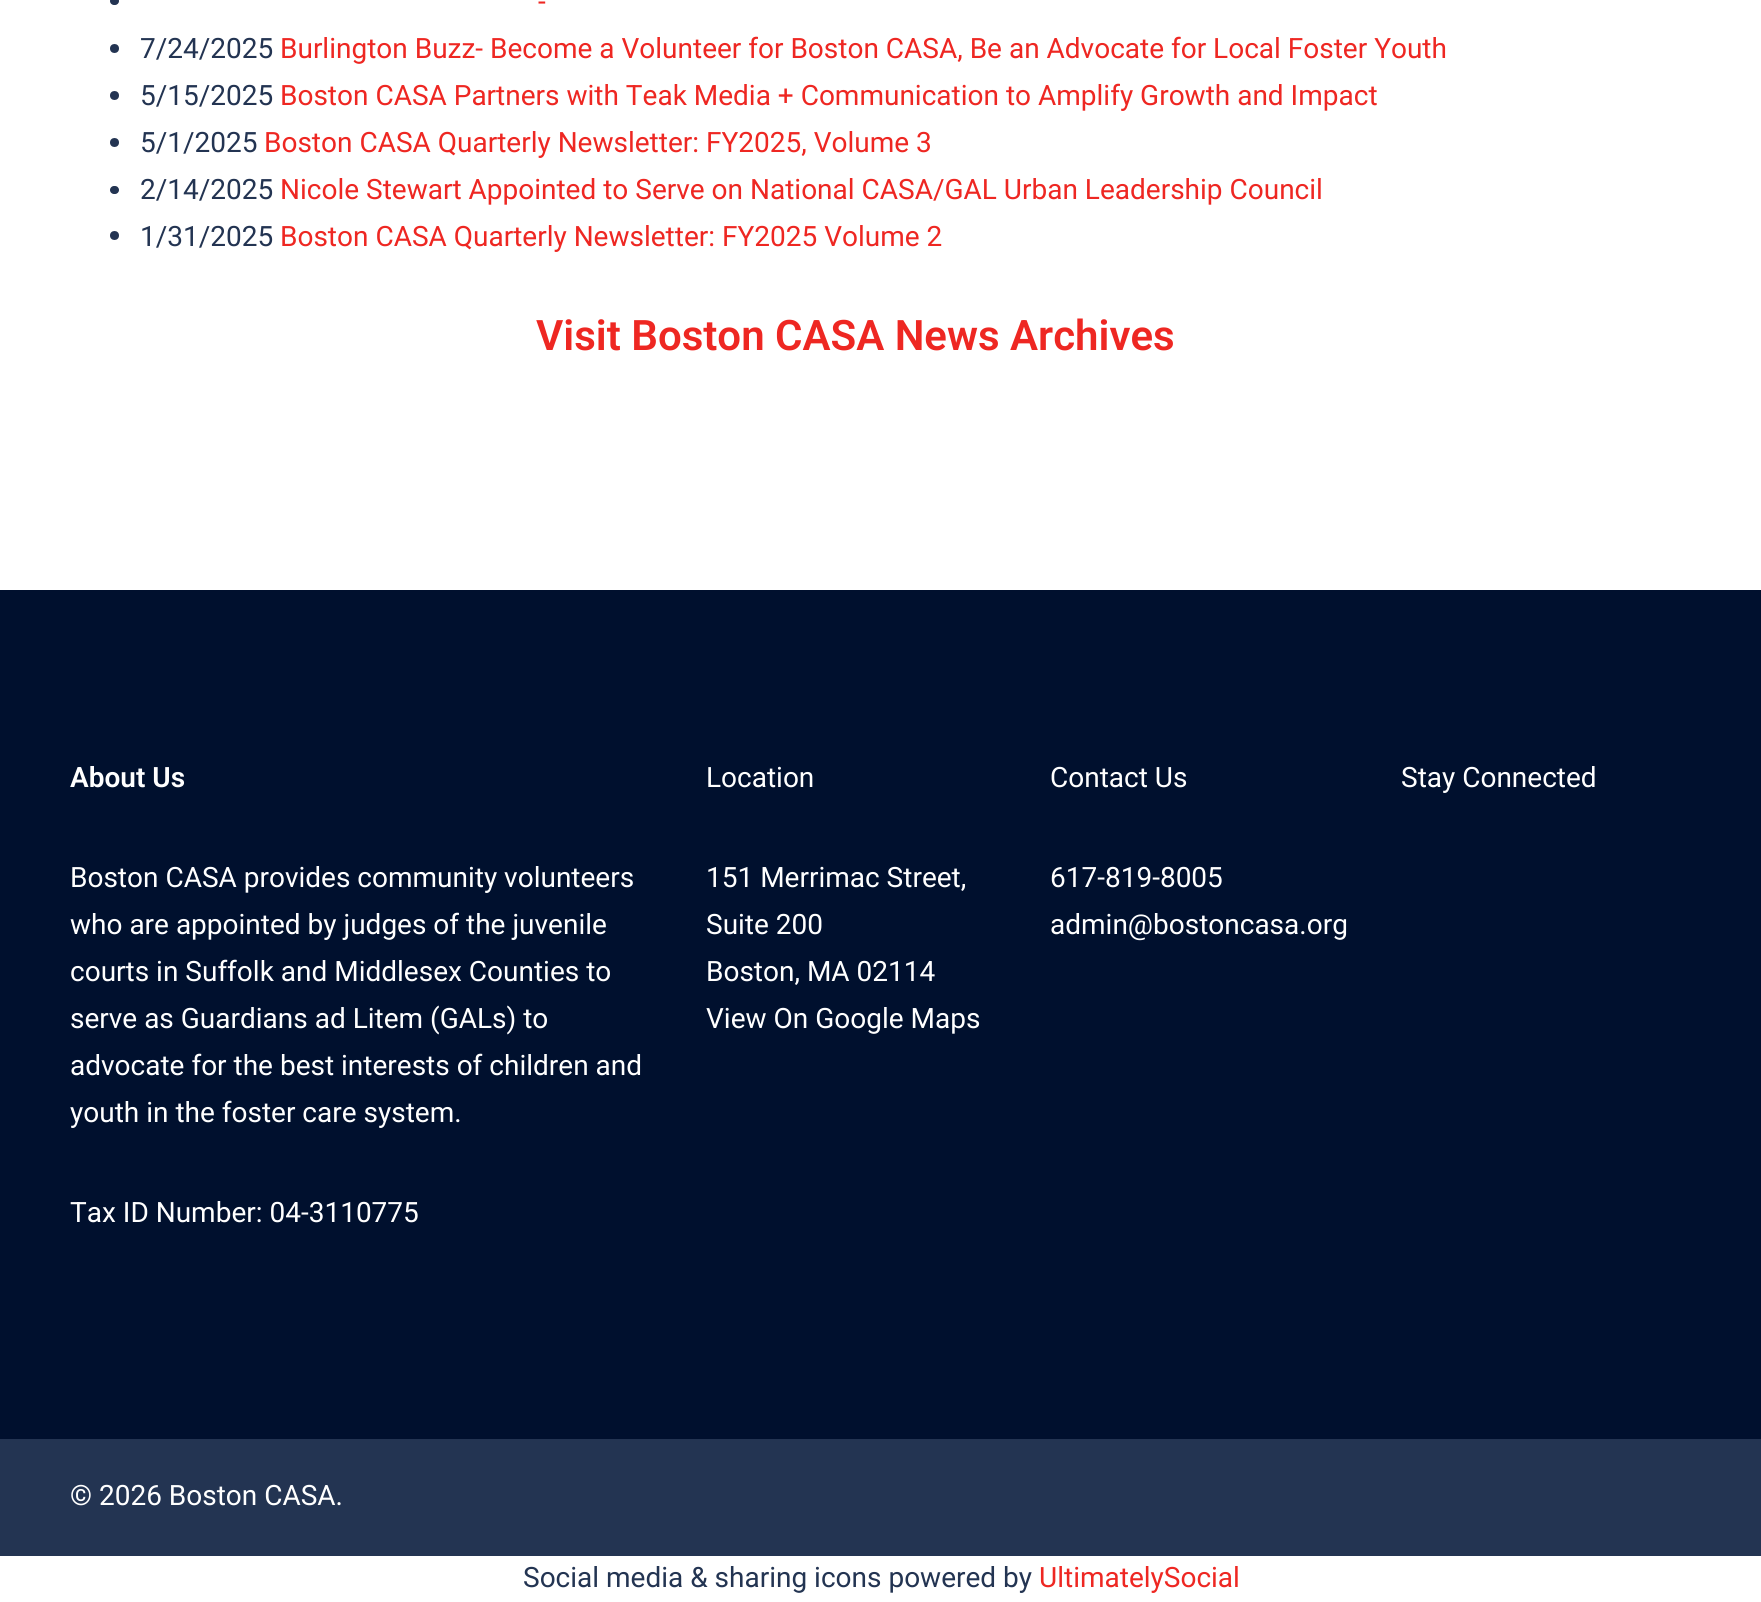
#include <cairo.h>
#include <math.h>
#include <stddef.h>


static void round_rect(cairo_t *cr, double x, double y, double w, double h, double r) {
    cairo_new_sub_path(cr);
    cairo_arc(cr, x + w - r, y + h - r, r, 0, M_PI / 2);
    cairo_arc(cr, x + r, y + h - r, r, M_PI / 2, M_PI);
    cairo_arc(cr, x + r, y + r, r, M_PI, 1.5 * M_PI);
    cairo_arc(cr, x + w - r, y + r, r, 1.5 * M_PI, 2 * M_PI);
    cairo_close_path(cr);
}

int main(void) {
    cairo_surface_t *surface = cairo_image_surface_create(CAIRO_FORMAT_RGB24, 1761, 1602);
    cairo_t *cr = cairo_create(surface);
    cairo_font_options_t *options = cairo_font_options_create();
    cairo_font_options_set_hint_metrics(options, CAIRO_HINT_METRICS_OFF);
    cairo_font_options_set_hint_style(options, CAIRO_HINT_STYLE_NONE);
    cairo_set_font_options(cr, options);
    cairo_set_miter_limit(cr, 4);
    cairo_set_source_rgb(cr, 1, 1, 1);
    cairo_paint(cr);
    cairo_set_source_rgb(cr, 0.137, 0.204, 0.322);
    round_rect(cr, 110, -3, 9, 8, 4);
    cairo_fill(cr);
    cairo_select_font_face(cr, "Roboto", CAIRO_FONT_SLANT_NORMAL, CAIRO_FONT_WEIGHT_NORMAL);
    cairo_set_font_size(cr, 28);
    cairo_set_source_rgb(cr, 0.933, 0.153, 0.133);
    cairo_move_to(cr, 538, 11);
    cairo_show_text(cr, "-");
    cairo_set_source_rgb(cr, 0.137, 0.204, 0.322);
    cairo_new_path(cr);
    cairo_arc(cr, 114.5, 48.5, 4.5, 0, 2 * M_PI);
    cairo_fill(cr);
    cairo_move_to(cr, 140, 58);
    cairo_show_text(cr, "7/24/2025");
    cairo_set_source_rgb(cr, 0.933, 0.153, 0.133);
    cairo_move_to(cr, 280, 58);
    cairo_show_text(cr, "Burlington Buzz- Become a Volunteer for Boston CASA, Be an Advocate for Local Foster Youth");
    cairo_set_source_rgb(cr, 0.137, 0.204, 0.322);
    cairo_new_path(cr);
    cairo_arc(cr, 114.5, 95.5, 4.5, 0, 2 * M_PI);
    cairo_fill(cr);
    cairo_move_to(cr, 140, 105);
    cairo_show_text(cr, "5/15/2025");
    cairo_set_source_rgb(cr, 0.933, 0.153, 0.133);
    cairo_move_to(cr, 280, 105);
    cairo_show_text(cr, "Boston CASA Partners with Teak Media + Communication to Amplify Growth and Impact");
    cairo_set_source_rgb(cr, 0.137, 0.204, 0.322);
    cairo_new_path(cr);
    cairo_arc(cr, 114.5, 142.5, 4.5, 0, 2 * M_PI);
    cairo_fill(cr);
    cairo_move_to(cr, 140, 152);
    cairo_show_text(cr, "5/1/2025");
    cairo_set_source_rgb(cr, 0.933, 0.153, 0.133);
    cairo_move_to(cr, 264, 152);
    cairo_show_text(cr, "Boston CASA Quarterly Newsletter: FY2025, Volume 3");
    cairo_set_source_rgb(cr, 0.137, 0.204, 0.322);
    round_rect(cr, 110, 186, 9, 8, 4);
    cairo_fill(cr);
    cairo_move_to(cr, 140, 199);
    cairo_show_text(cr, "2/14/2025");
    cairo_set_source_rgb(cr, 0.933, 0.153, 0.133);
    cairo_move_to(cr, 280, 199);
    cairo_show_text(cr, "Nicole Stewart Appointed to Serve on National CASA/GAL Urban Leadership Council");
    cairo_set_source_rgb(cr, 0.137, 0.204, 0.322);
    cairo_new_path(cr);
    cairo_arc(cr, 114.5, 235.5, 4.5, 0, 2 * M_PI);
    cairo_fill(cr);
    cairo_move_to(cr, 140, 246);
    cairo_show_text(cr, "1/31/2025");
    cairo_set_source_rgb(cr, 0.933, 0.153, 0.133);
    cairo_move_to(cr, 280, 246);
    cairo_show_text(cr, "Boston CASA Quarterly Newsletter: FY2025 Volume 2");
    cairo_select_font_face(cr, "Roboto SemiBold", CAIRO_FONT_SLANT_NORMAL, CAIRO_FONT_WEIGHT_NORMAL);
    cairo_set_font_size(cr, 42);
    cairo_move_to(cr, 536, 350);
    cairo_show_text(cr, "Visit Boston CASA News Archives");
    cairo_set_source_rgb(cr, 0, 0.063, 0.18);
    cairo_rectangle(cr, 0, 590, 1761, 849);
    cairo_fill(cr);
    cairo_set_font_size(cr, 28);
    cairo_set_source_rgb(cr, 1, 1, 1);
    cairo_move_to(cr, 70, 787);
    cairo_show_text(cr, "About Us");
    cairo_select_font_face(cr, "Roboto", CAIRO_FONT_SLANT_NORMAL, CAIRO_FONT_WEIGHT_NORMAL);
    cairo_move_to(cr, 70, 887);
    cairo_show_text(cr, "Boston CASA provides community volunteers");
    cairo_move_to(cr, 70, 934);
    cairo_show_text(cr, "who are appointed by judges of the juvenile");
    cairo_move_to(cr, 70, 981);
    cairo_show_text(cr, "courts in Suffolk and Middlesex Counties to");
    cairo_move_to(cr, 70, 1028);
    cairo_show_text(cr, "serve as Guardians ad Litem (GALs) to");
    cairo_move_to(cr, 70, 1075);
    cairo_show_text(cr, "advocate for the best interests of children and");
    cairo_move_to(cr, 70, 1122);
    cairo_show_text(cr, "youth in the foster care system.");
    cairo_move_to(cr, 70, 1222);
    cairo_show_text(cr, "Tax ID Number: 04-3110775");
    cairo_move_to(cr, 706, 787);
    cairo_show_text(cr, "Location");
    cairo_move_to(cr, 706, 887);
    cairo_show_text(cr, "151 Merrimac Street,");
    cairo_move_to(cr, 706, 934);
    cairo_show_text(cr, "Suite 200");
    cairo_move_to(cr, 706, 981);
    cairo_show_text(cr, "Boston, MA 02114");
    cairo_move_to(cr, 706, 1028);
    cairo_show_text(cr, "View On Google Maps");
    cairo_move_to(cr, 1050, 787);
    cairo_show_text(cr, "Contact Us");
    cairo_move_to(cr, 1050, 887);
    cairo_show_text(cr, "617-819-8005");
    cairo_move_to(cr, 1050, 934);
    cairo_show_text(cr, "admin@bostoncasa.org");
    cairo_move_to(cr, 1401, 787);
    cairo_show_text(cr, "Stay Connected");
    cairo_set_source_rgb(cr, 0.137, 0.204, 0.322);
    cairo_rectangle(cr, 0, 1439, 1761, 117);
    cairo_fill(cr);
    cairo_set_source_rgb(cr, 1, 1, 1);
    cairo_move_to(cr, 70, 1505);
    cairo_show_text(cr, "© 2026 Boston CASA.");
    cairo_set_source_rgb(cr, 0.137, 0.204, 0.322);
    cairo_move_to(cr, 523, 1587);
    cairo_show_text(cr, "Social media & sharing icons powered by");
    cairo_set_source_rgb(cr, 0.933, 0.153, 0.133);
    cairo_move_to(cr, 1039, 1587);
    cairo_show_text(cr, "UltimatelySocial");
    cairo_surface_write_to_png(surface, "page.png");
    cairo_font_options_destroy(options);
    cairo_destroy(cr);
    cairo_surface_destroy(surface);
    return 0;
}
